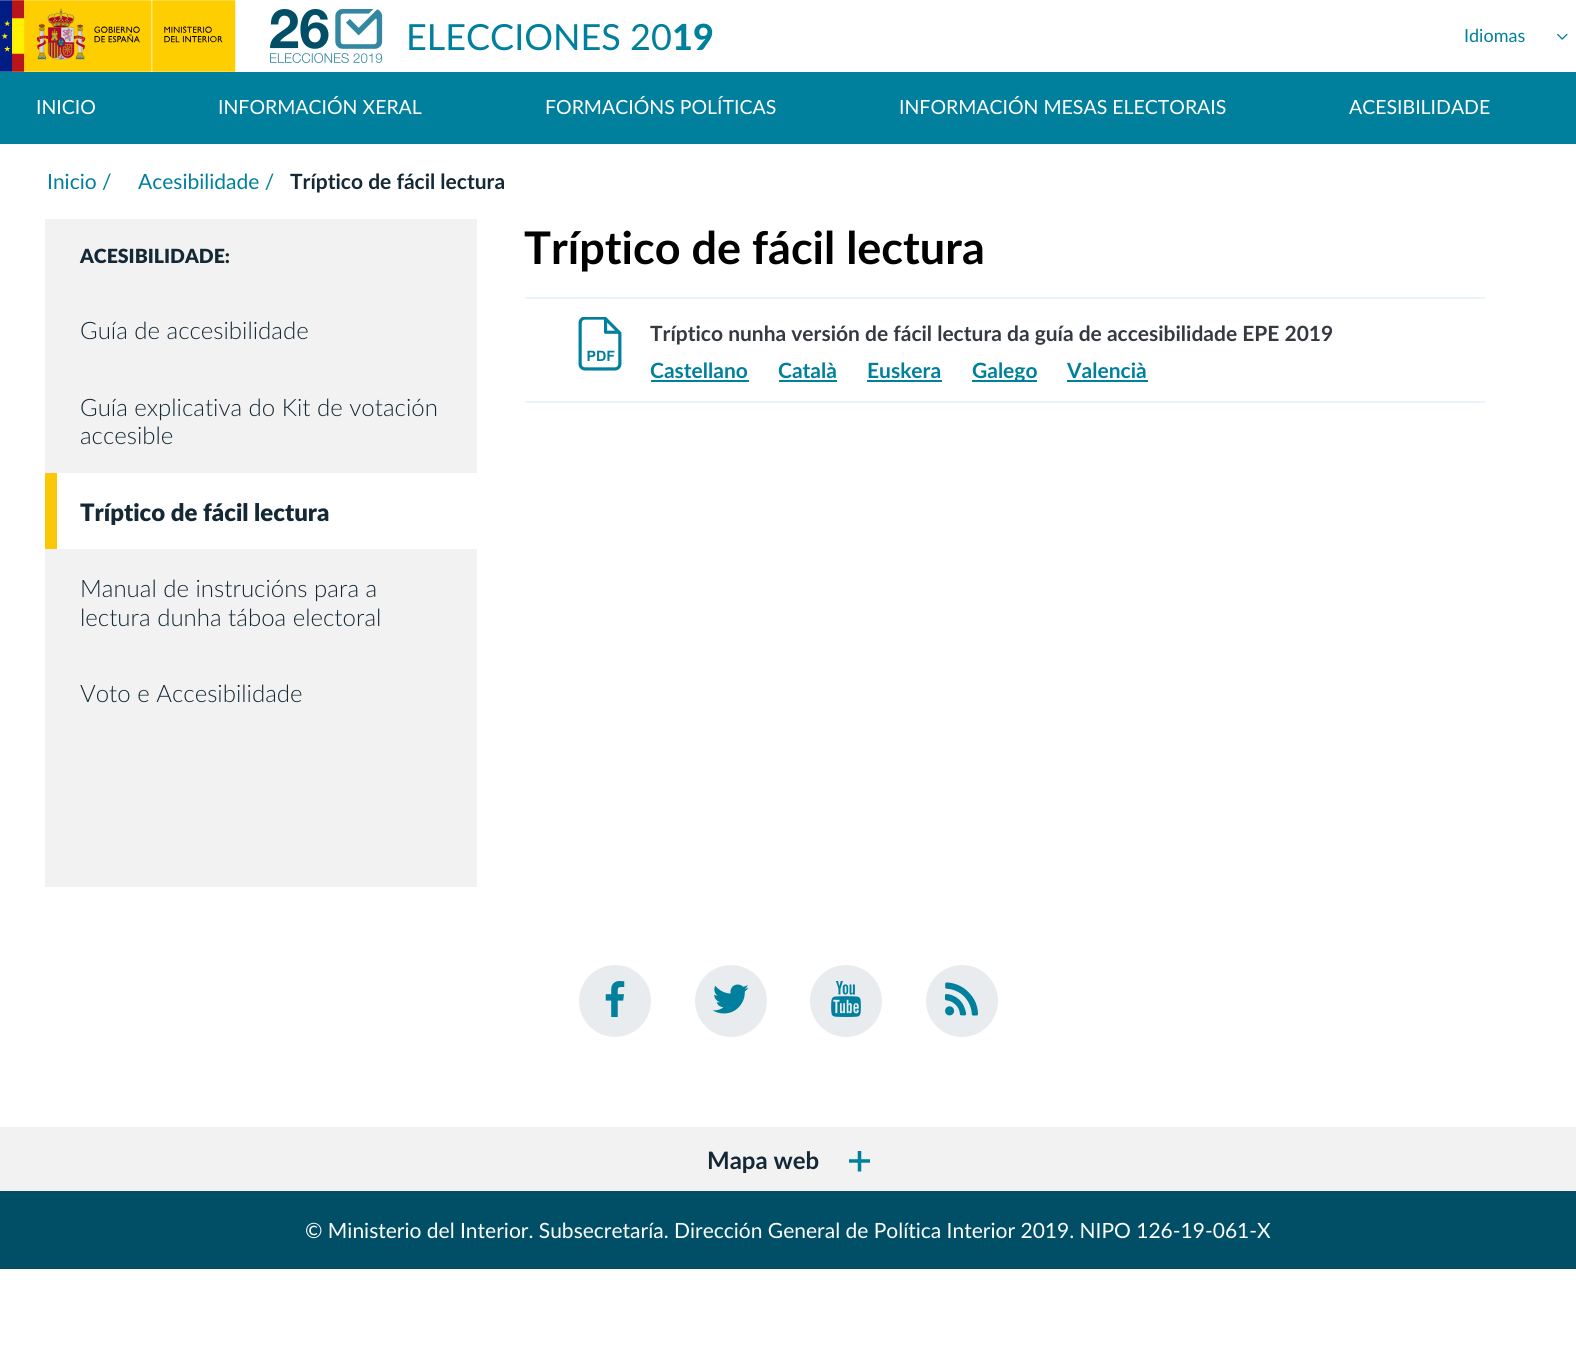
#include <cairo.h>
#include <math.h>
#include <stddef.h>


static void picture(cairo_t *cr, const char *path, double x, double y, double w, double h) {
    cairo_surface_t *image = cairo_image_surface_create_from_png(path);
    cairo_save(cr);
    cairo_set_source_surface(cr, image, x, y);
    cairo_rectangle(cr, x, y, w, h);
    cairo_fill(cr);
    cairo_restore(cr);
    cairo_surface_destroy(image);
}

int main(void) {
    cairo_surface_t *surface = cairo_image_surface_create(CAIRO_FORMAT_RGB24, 1576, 1371);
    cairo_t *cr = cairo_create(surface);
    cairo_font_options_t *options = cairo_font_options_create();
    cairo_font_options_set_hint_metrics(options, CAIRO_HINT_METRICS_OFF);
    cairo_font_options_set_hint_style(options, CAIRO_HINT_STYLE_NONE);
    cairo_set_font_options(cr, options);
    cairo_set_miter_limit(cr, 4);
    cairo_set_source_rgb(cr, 1, 1, 1);
    cairo_paint(cr);
    picture(cr, "img1.png", 0, 0, 236, 72);
    picture(cr, "img2.png", 270, 9, 113, 54);
    cairo_select_font_face(cr, "Lato", CAIRO_FONT_SLANT_NORMAL, CAIRO_FONT_WEIGHT_NORMAL);
    cairo_set_font_size(cr, 36);
    cairo_set_source_rgb(cr, 0, 0.502, 0.616);
    cairo_move_to(cr, 406, 50);
    cairo_show_text(cr, "ELECCIONES 20");
    cairo_select_font_face(cr, "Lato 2 Black", CAIRO_FONT_SLANT_NORMAL, CAIRO_FONT_WEIGHT_NORMAL);
    cairo_move_to(cr, 672, 50);
    cairo_show_text(cr, "19");
    cairo_rectangle(cr, 0, 72, 1576, 72);
    cairo_fill(cr);
    cairo_select_font_face(cr, "Lato", CAIRO_FONT_SLANT_NORMAL, CAIRO_FONT_WEIGHT_NORMAL);
    cairo_set_font_size(cr, 18);
    cairo_move_to(cr, 1464, 42);
    cairo_show_text(cr, "Idiomas");
    picture(cr, "img3.png", 1557, 33, 11, 7);
    cairo_set_font_size(cr, 19.5);
    cairo_set_source_rgb(cr, 1, 1, 1);
    cairo_move_to(cr, 36, 114);
    cairo_show_text(cr, "INICIO");
    cairo_move_to(cr, 218, 114);
    cairo_show_text(cr, "INFORMACIÓN XERAL");
    cairo_move_to(cr, 545, 114);
    cairo_show_text(cr, "FORMACIÓNS POLÍTICAS");
    cairo_move_to(cr, 899, 114);
    cairo_show_text(cr, "INFORMACIÓN MESAS ELECTORAIS");
    cairo_move_to(cr, 1349, 114);
    cairo_show_text(cr, "ACESIBILIDADE");
    cairo_set_font_size(cr, 21);
    cairo_set_source_rgb(cr, 0, 0.502, 0.616);
    cairo_move_to(cr, 47, 189);
    cairo_show_text(cr, "Inicio /");
    cairo_move_to(cr, 138, 189);
    cairo_show_text(cr, "Acesibilidade /");
    cairo_select_font_face(cr, "Lato", CAIRO_FONT_SLANT_NORMAL, CAIRO_FONT_WEIGHT_BOLD);
    cairo_set_source_rgb(cr, 0.082, 0.161, 0.208);
    cairo_move_to(cr, 290, 189);
    cairo_show_text(cr, "Tríptico de fácil lectura");
    cairo_set_source_rgb(cr, 0.949, 0.949, 0.949);
    cairo_rectangle(cr, 45, 219, 432, 668);
    cairo_fill(cr);
    cairo_select_font_face(cr, "Lato Black", CAIRO_FONT_SLANT_NORMAL, CAIRO_FONT_WEIGHT_NORMAL);
    cairo_set_font_size(cr, 19.5);
    cairo_set_source_rgb(cr, 0.082, 0.161, 0.208);
    cairo_move_to(cr, 80, 263);
    cairo_show_text(cr, "ACESIBILIDADE:");
    cairo_select_font_face(cr, "Lato Light", CAIRO_FONT_SLANT_NORMAL, CAIRO_FONT_WEIGHT_NORMAL);
    cairo_set_font_size(cr, 24);
    cairo_move_to(cr, 80, 339);
    cairo_show_text(cr, "Guía de accesibilidade");
    cairo_move_to(cr, 80, 416);
    cairo_show_text(cr, "Guía explicativa do Kit de votación");
    cairo_move_to(cr, 80, 444);
    cairo_show_text(cr, "accesible");
    cairo_set_source_rgb(cr, 1, 1, 1);
    cairo_rectangle(cr, 57, 473, 420, 76);
    cairo_fill(cr);
    cairo_set_source_rgb(cr, 0.988, 0.78, 0.02);
    cairo_rectangle(cr, 45, 473, 12, 76);
    cairo_fill(cr);
    cairo_select_font_face(cr, "Lato Black", CAIRO_FONT_SLANT_NORMAL, CAIRO_FONT_WEIGHT_NORMAL);
    cairo_set_source_rgb(cr, 0.082, 0.161, 0.208);
    cairo_move_to(cr, 80, 521);
    cairo_show_text(cr, "Tríptico de fácil lectura");
    cairo_select_font_face(cr, "Lato Light", CAIRO_FONT_SLANT_NORMAL, CAIRO_FONT_WEIGHT_NORMAL);
    cairo_move_to(cr, 80, 597);
    cairo_show_text(cr, "Manual de instrucións para a");
    cairo_move_to(cr, 80, 626);
    cairo_show_text(cr, "lectura dunha táboa electoral");
    cairo_move_to(cr, 80, 702);
    cairo_show_text(cr, "Voto e Accesibilidade");
    cairo_select_font_face(cr, "Lato", CAIRO_FONT_SLANT_NORMAL, CAIRO_FONT_WEIGHT_BOLD);
    cairo_set_font_size(cr, 45);
    cairo_set_source_rgb(cr, 0, 0, 0);
    cairo_move_to(cr, 524, 264);
    cairo_show_text(cr, "Tríptico de fácil lectura");
    cairo_set_source_rgb(cr, 0.914, 0.957, 0.969);
    cairo_rectangle(cr, 525, 297, 960, 2);
    cairo_fill(cr);
    cairo_rectangle(cr, 525, 401, 960, 2);
    cairo_fill(cr);
    picture(cr, "img4.png", 578, 317, 44, 54);
    cairo_set_font_size(cr, 21);
    cairo_set_source_rgb(cr, 0.204, 0.227, 0.251);
    cairo_move_to(cr, 650, 341);
    cairo_show_text(cr, "Tríptico nunha versión de fácil lectura da guía de accesibilidade EPE 2019");
    cairo_set_source_rgb(cr, 0, 0.502, 0.616);
    cairo_move_to(cr, 650, 378);
    cairo_show_text(cr, "Castellano");
    cairo_rectangle(cr, 651, 380, 98, 2);
    cairo_fill(cr);
    cairo_move_to(cr, 778, 378);
    cairo_show_text(cr, "Català");
    cairo_rectangle(cr, 779, 380, 58, 2);
    cairo_fill(cr);
    cairo_move_to(cr, 867, 378);
    cairo_show_text(cr, "Euskera");
    cairo_rectangle(cr, 867, 380, 75, 2);
    cairo_fill(cr);
    cairo_rectangle(cr, 972, 380, 65, 2);
    cairo_fill(cr);
    cairo_move_to(cr, 972, 378);
    cairo_show_text(cr, "Galego");
    cairo_move_to(cr, 1067, 378);
    cairo_show_text(cr, "Valencià");
    cairo_rectangle(cr, 1067, 380, 81, 2);
    cairo_fill(cr);
    cairo_set_source_rgb(cr, 0.914, 0.925, 0.937);
    cairo_arc(cr, 615, 1001, 36, 0, 2 * M_PI);
    cairo_fill(cr);
    picture(cr, "img5.png", 605, 981, 20, 36);
    cairo_arc(cr, 731, 1001, 36, 0, 2 * M_PI);
    cairo_fill(cr);
    picture(cr, "img6.png", 713, 984, 36, 30);
    cairo_arc(cr, 846, 1001, 36, 0, 2 * M_PI);
    cairo_fill(cr);
    picture(cr, "img7.png", 831, 981, 30, 36);
    cairo_arc(cr, 962, 1001, 36, 0, 2 * M_PI);
    cairo_fill(cr);
    picture(cr, "img8.png", 944, 982, 35, 34);
    cairo_set_source_rgb(cr, 0.949, 0.949, 0.949);
    cairo_rectangle(cr, 0, 1127, 1576, 64);
    cairo_fill(cr);
    cairo_set_font_size(cr, 24);
    cairo_set_source_rgb(cr, 0.082, 0.161, 0.208);
    cairo_move_to(cr, 707, 1169);
    cairo_show_text(cr, "Mapa web");
    picture(cr, "img9.png", 849, 1151, 21, 21);
    cairo_set_source_rgb(cr, 0, 0.31, 0.404);
    cairo_rectangle(cr, 0, 1191, 1576, 78);
    cairo_fill(cr);
    cairo_select_font_face(cr, "Lato", CAIRO_FONT_SLANT_NORMAL, CAIRO_FONT_WEIGHT_NORMAL);
    cairo_set_font_size(cr, 21);
    cairo_set_source_rgb(cr, 1, 1, 1);
    cairo_move_to(cr, 305, 1238);
    cairo_show_text(cr, "© Ministerio del Interior. Subsecretaría. Dirección General de Política Interior 2019. NIPO 126-19-061-X");
    cairo_surface_write_to_png(surface, "page.png");
    cairo_font_options_destroy(options);
    cairo_destroy(cr);
    cairo_surface_destroy(surface);
    return 0;
}
